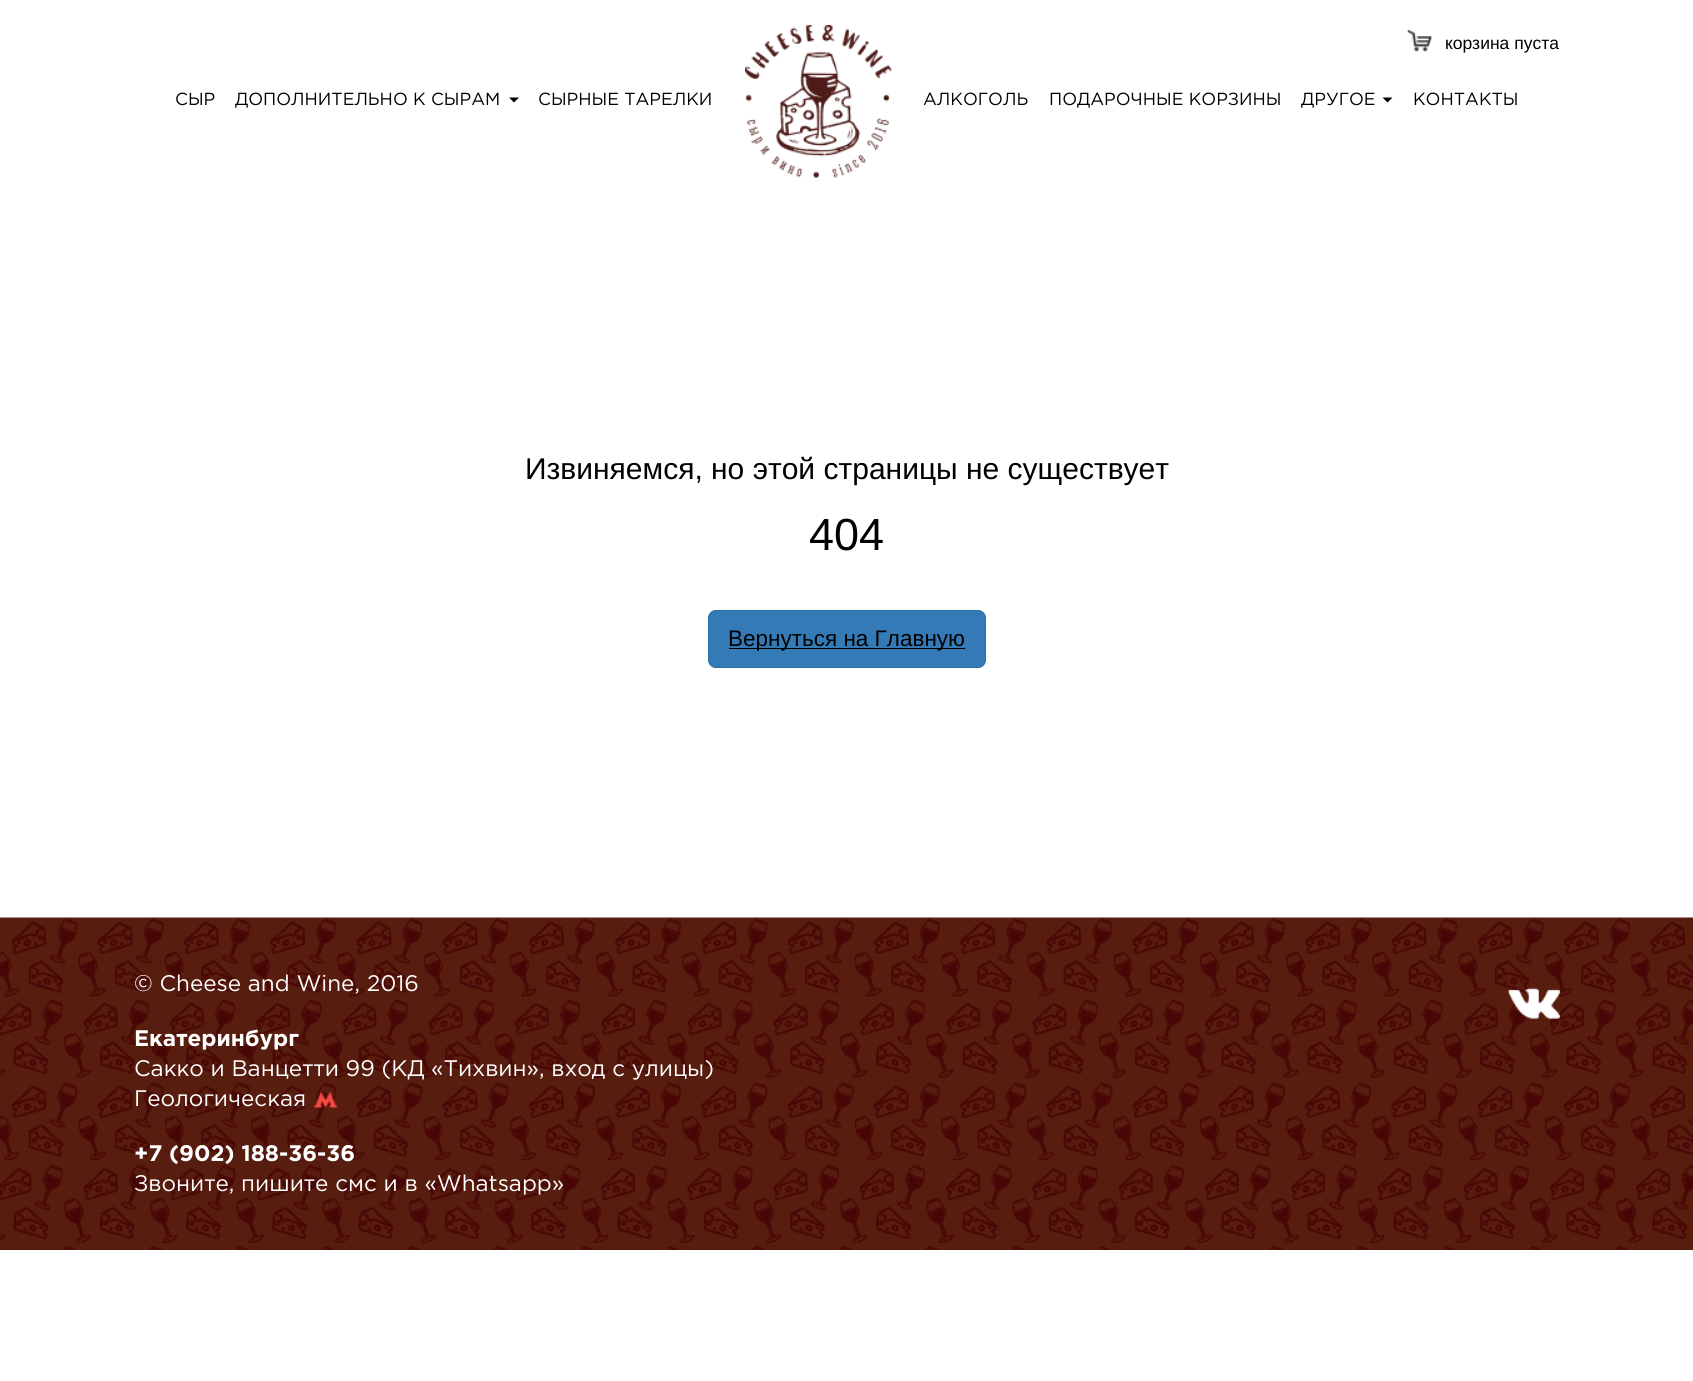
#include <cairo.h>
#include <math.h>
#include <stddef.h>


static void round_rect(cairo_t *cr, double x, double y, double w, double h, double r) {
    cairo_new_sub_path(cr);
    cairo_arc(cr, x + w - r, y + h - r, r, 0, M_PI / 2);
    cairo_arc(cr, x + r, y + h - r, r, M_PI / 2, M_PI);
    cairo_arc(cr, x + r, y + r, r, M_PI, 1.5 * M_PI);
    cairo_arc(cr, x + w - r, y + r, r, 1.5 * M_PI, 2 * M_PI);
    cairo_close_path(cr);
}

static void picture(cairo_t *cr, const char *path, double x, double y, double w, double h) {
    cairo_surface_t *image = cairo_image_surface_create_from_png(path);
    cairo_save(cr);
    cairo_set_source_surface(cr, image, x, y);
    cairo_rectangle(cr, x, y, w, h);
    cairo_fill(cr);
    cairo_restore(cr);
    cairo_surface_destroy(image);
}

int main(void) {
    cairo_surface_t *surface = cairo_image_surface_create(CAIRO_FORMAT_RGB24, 1693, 1381);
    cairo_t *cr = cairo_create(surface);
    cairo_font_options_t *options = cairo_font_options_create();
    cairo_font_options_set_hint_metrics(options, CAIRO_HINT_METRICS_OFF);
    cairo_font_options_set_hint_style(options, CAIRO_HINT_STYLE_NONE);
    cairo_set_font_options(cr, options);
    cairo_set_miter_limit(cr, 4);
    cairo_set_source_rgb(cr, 1, 1, 1);
    cairo_paint(cr);
    picture(cr, "img1.png", 1407, 30, 25, 22);
    cairo_select_font_face(cr, "Liberation Sans", CAIRO_FONT_SLANT_NORMAL, CAIRO_FONT_WEIGHT_NORMAL);
    cairo_set_font_size(cr, 17.5);
    cairo_set_source_rgb(cr, 0, 0, 0);
    cairo_move_to(cr, 1445, 49);
    cairo_show_text(cr, "корзина пуста");
    cairo_select_font_face(cr, "Gotham", CAIRO_FONT_SLANT_NORMAL, CAIRO_FONT_WEIGHT_NORMAL);
    cairo_move_to(cr, 175, 105);
    cairo_show_text(cr, "СЫР");
    cairo_move_to(cr, 235, 105);
    cairo_show_text(cr, "ДОПОЛНИТЕЛЬНО К СЫРАМ");
    cairo_new_path(cr);
    cairo_move_to(cr, 509, 97.5);
    cairo_line_to(cr, 519, 97.5);
    cairo_line_to(cr, 514, 102.5);
    cairo_close_path(cr);
    cairo_fill(cr);
    cairo_move_to(cr, 538, 105);
    cairo_show_text(cr, "СЫРНЫЕ ТАРЕЛКИ");
    picture(cr, "img2.png", 745, 25, 147, 153);
    cairo_move_to(cr, 923, 105);
    cairo_show_text(cr, "АЛКОГОЛЬ");
    cairo_move_to(cr, 1049, 105);
    cairo_show_text(cr, "ПОДАРОЧНЫЕ КОРЗИНЫ");
    cairo_move_to(cr, 1301, 105);
    cairo_show_text(cr, "ДРУГОЕ");
    cairo_new_path(cr);
    cairo_move_to(cr, 1382.5, 97.5);
    cairo_line_to(cr, 1392.5, 97.5);
    cairo_line_to(cr, 1387.5, 102.5);
    cairo_close_path(cr);
    cairo_fill(cr);
    cairo_move_to(cr, 1413, 105);
    cairo_show_text(cr, "КОНТАКТЫ");
    cairo_select_font_face(cr, "Liberation Sans", CAIRO_FONT_SLANT_NORMAL, CAIRO_FONT_WEIGHT_NORMAL);
    cairo_set_font_size(cr, 30);
    cairo_move_to(cr, 525, 479);
    cairo_show_text(cr, "Извиняемся, но этой страницы не существует");
    cairo_set_font_size(cr, 45);
    cairo_move_to(cr, 809, 550);
    cairo_show_text(cr, "404");
    cairo_set_source_rgb(cr, 0.2, 0.478, 0.718);
    round_rect(cr, 708.5, 610.5, 277, 57, 7.5);
    cairo_fill_preserve(cr);
    cairo_set_source_rgb(cr, 0.18, 0.427, 0.643);
    cairo_set_line_width(cr, 1);
    cairo_stroke(cr);
    cairo_set_source_rgb(cr, 0, 0, 0);
    cairo_rectangle(cr, 729, 648, 236, 1);
    cairo_fill(cr);
    cairo_set_font_size(cr, 22.5);
    cairo_move_to(cr, 728, 646);
    cairo_show_text(cr, "Вернуться на Главную");
    picture(cr, "img3.png", 0, 917, 1693, 333);
    cairo_select_font_face(cr, "Gotham", CAIRO_FONT_SLANT_NORMAL, CAIRO_FONT_WEIGHT_NORMAL);
    cairo_set_source_rgb(cr, 1, 1, 1);
    cairo_move_to(cr, 134, 991);
    cairo_show_text(cr, "© Cheese and Wine, 2016");
    cairo_select_font_face(cr, "Gotham", CAIRO_FONT_SLANT_NORMAL, CAIRO_FONT_WEIGHT_BOLD);
    cairo_move_to(cr, 134, 1046);
    cairo_show_text(cr, "Екатеринбург");
    cairo_select_font_face(cr, "Gotham", CAIRO_FONT_SLANT_NORMAL, CAIRO_FONT_WEIGHT_NORMAL);
    cairo_move_to(cr, 134, 1076);
    cairo_show_text(cr, "Сакко и Ванцетти 99 (КД «Тихвин», вход с улицы)");
    cairo_move_to(cr, 134, 1106);
    cairo_show_text(cr, "Геологическая");
    picture(cr, "img4.png", 313, 1091, 25, 17);
    cairo_select_font_face(cr, "Gotham", CAIRO_FONT_SLANT_NORMAL, CAIRO_FONT_WEIGHT_BOLD);
    cairo_move_to(cr, 134, 1161);
    cairo_show_text(cr, "+7 (902) 188-36-36");
    cairo_select_font_face(cr, "Gotham", CAIRO_FONT_SLANT_NORMAL, CAIRO_FONT_WEIGHT_NORMAL);
    cairo_move_to(cr, 134, 1191);
    cairo_show_text(cr, "Звоните, пишите смс и в «Whatsapp»");
    picture(cr, "img5.png", 1508, 988, 52, 31);
    cairo_surface_write_to_png(surface, "page.png");
    cairo_font_options_destroy(options);
    cairo_destroy(cr);
    cairo_surface_destroy(surface);
    return 0;
}
